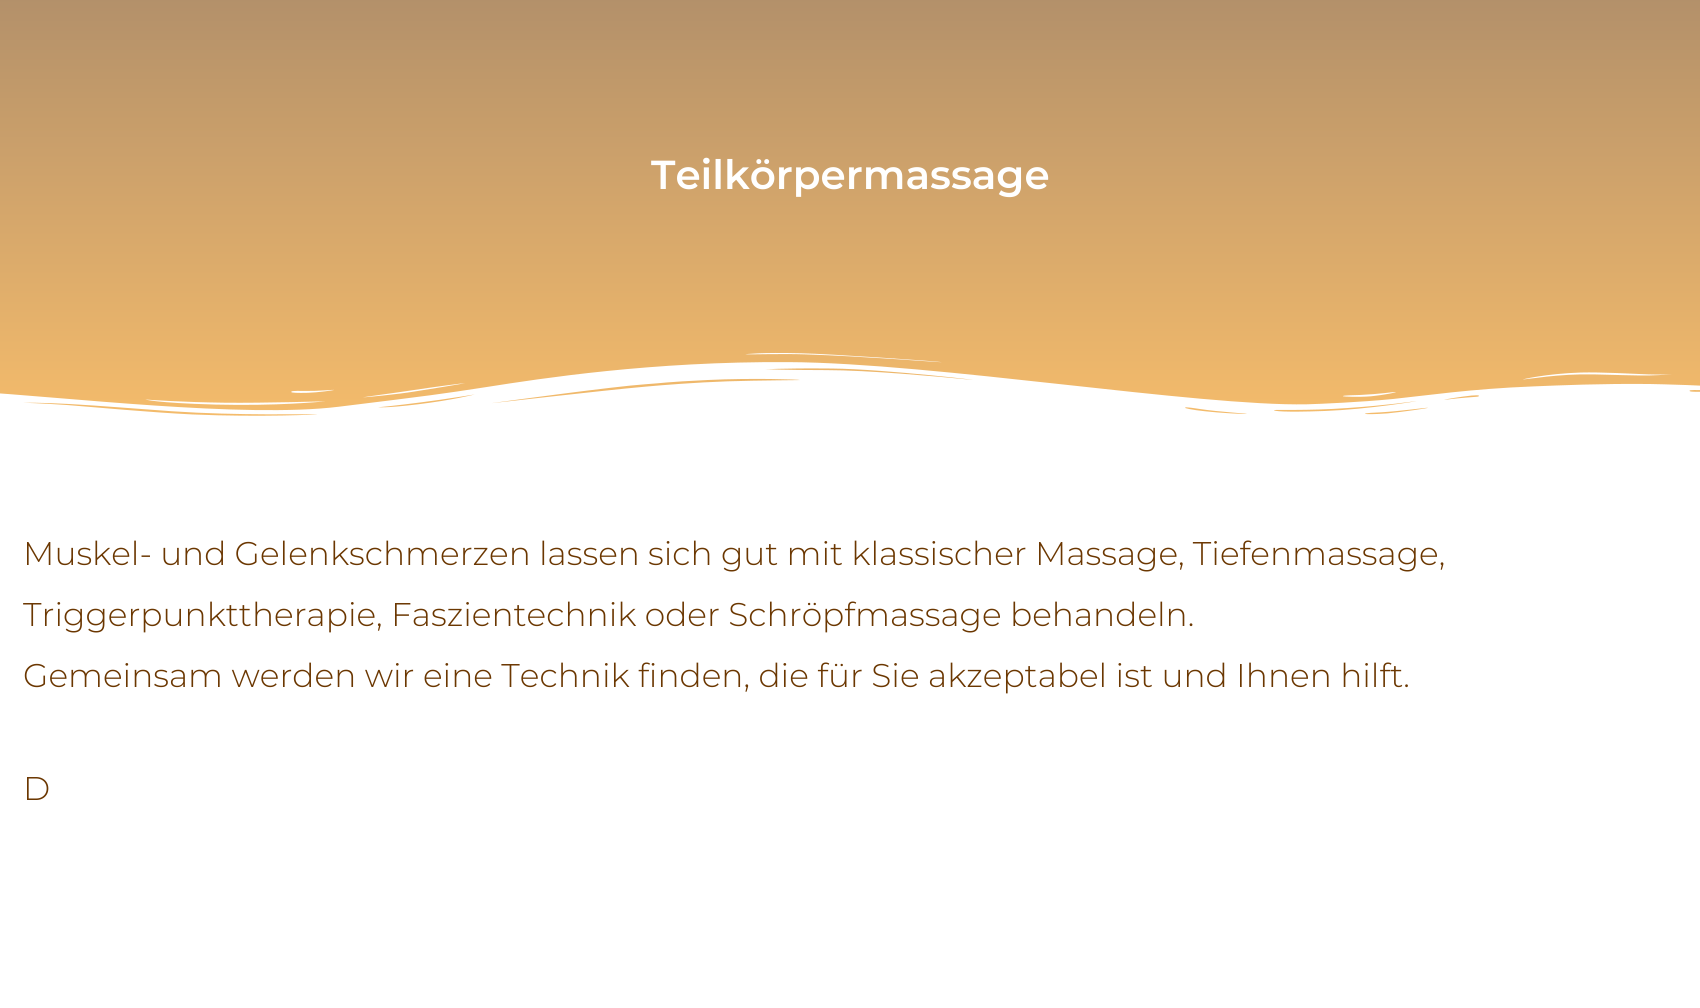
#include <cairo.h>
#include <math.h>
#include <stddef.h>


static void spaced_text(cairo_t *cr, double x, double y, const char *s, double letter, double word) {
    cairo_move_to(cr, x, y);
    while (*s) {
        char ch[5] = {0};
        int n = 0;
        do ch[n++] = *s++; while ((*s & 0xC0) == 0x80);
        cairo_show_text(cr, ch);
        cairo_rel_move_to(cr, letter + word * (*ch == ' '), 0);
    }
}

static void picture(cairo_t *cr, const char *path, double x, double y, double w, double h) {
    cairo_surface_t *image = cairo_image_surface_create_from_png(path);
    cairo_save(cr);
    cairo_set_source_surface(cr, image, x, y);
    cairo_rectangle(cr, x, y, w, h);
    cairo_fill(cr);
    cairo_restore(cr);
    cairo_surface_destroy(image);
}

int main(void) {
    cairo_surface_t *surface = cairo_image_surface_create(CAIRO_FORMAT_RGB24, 1700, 1008);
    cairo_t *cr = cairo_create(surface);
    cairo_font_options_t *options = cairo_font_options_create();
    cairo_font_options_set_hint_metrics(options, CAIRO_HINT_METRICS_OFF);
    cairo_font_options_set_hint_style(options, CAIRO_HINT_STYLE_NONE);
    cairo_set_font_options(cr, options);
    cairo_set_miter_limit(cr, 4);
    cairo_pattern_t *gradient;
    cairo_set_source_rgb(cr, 1, 1, 1);
    cairo_paint(cr);
    gradient = cairo_pattern_create_linear(851, -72, 851, 423);
    cairo_pattern_add_color_stop_rgba(gradient, 0, 0.659, 0.537, 0.416, 1);
    cairo_pattern_add_color_stop_rgba(gradient, 1, 0.961, 0.737, 0.42, 1);
    cairo_set_source(cr, gradient);
    cairo_pattern_destroy(gradient);
    cairo_rectangle(cr, 0, 0, 1700, 416);
    cairo_fill(cr);
    cairo_select_font_face(cr, "Montserrat SemiBold", CAIRO_FONT_SLANT_NORMAL, CAIRO_FONT_WEIGHT_NORMAL);
    cairo_set_font_size(cr, 40.5);
    cairo_set_source_rgb(cr, 1, 1, 1);
    cairo_move_to(cr, 651, 189);
    cairo_show_text(cr, "Teilkörpermassage");
    picture(cr, "img1.png", 0, 352, 1700, 71);
    cairo_select_font_face(cr, "Montserrat Light", CAIRO_FONT_SLANT_NORMAL, CAIRO_FONT_WEIGHT_NORMAL);
    cairo_set_font_size(cr, 32.85);
    cairo_set_source_rgb(cr, 0.42, 0.216, 0.004);
    spaced_text(cr, 23, 565, "Muskel- und Gelenkschmerzen lassen sich gut mit klassischer Massage, Tiefenmassage,", 0, -0.25);
    cairo_move_to(cr, 23, 626);
    cairo_show_text(cr, "Triggerpunkttherapie, Faszientechnik oder Schröpfmassage behandeln.");
    cairo_move_to(cr, 23, 687);
    cairo_show_text(cr, "Gemeinsam werden wir eine Technik finden, die für Sie akzeptabel ist und Ihnen hilft.");
    cairo_move_to(cr, 23, 800);
    cairo_show_text(cr, "D");
    cairo_surface_write_to_png(surface, "page.png");
    cairo_font_options_destroy(options);
    cairo_destroy(cr);
    cairo_surface_destroy(surface);
    return 0;
}
